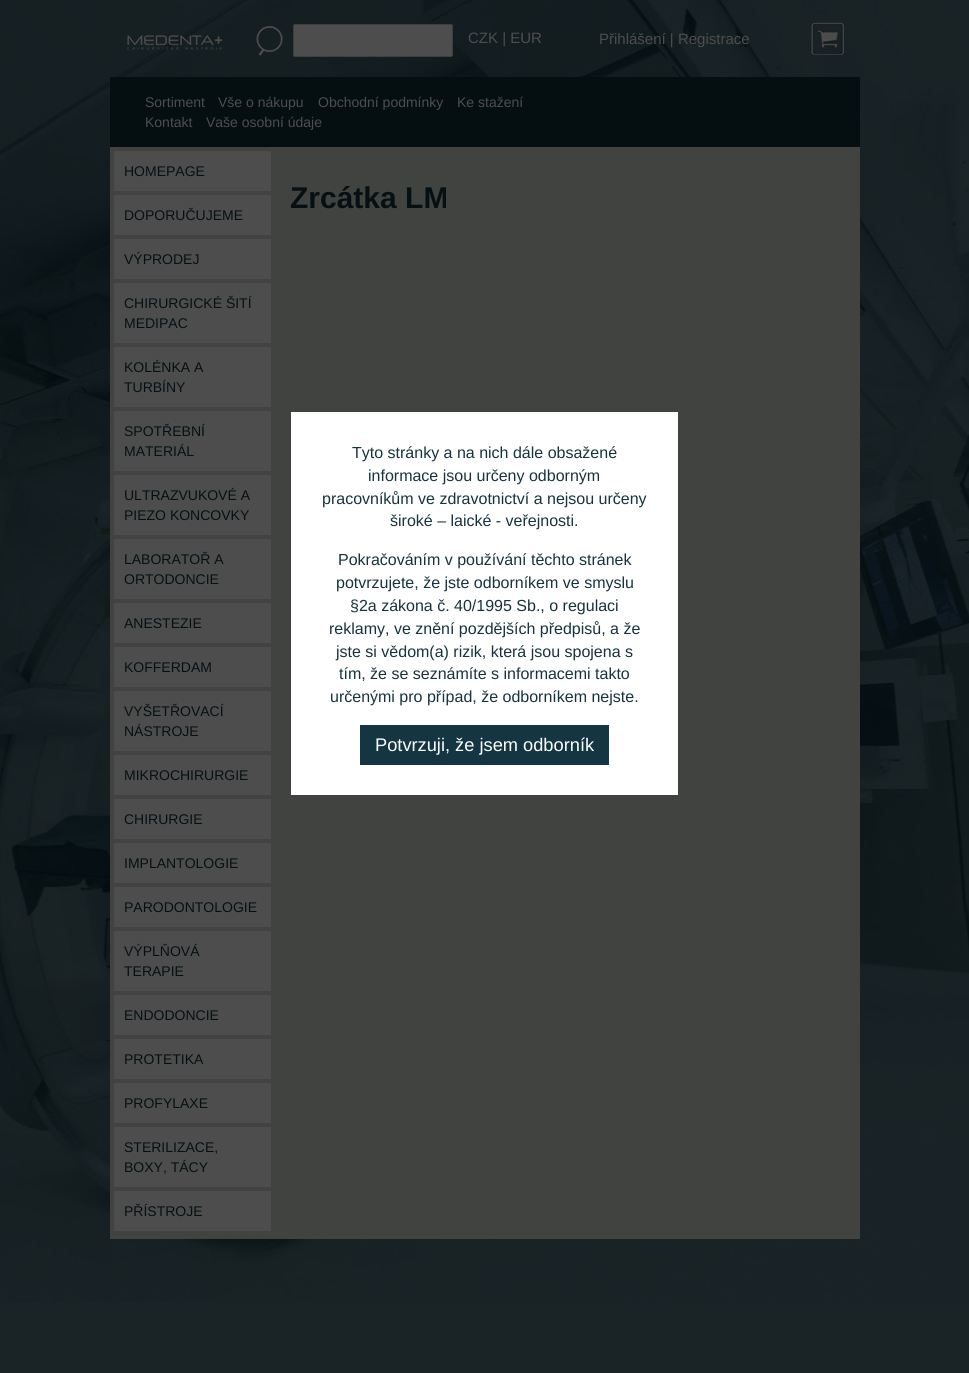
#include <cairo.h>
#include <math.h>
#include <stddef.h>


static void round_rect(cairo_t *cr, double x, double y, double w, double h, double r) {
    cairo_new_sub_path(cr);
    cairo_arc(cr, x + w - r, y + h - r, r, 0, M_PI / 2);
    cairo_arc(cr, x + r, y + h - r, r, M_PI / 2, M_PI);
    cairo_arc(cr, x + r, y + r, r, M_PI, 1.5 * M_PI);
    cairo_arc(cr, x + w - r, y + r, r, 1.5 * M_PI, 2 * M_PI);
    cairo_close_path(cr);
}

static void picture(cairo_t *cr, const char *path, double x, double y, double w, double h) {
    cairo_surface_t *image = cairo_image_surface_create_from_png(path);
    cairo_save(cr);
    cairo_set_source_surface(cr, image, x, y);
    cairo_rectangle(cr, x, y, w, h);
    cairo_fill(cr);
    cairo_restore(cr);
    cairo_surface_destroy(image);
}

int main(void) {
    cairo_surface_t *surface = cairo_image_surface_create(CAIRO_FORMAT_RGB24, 969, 1373);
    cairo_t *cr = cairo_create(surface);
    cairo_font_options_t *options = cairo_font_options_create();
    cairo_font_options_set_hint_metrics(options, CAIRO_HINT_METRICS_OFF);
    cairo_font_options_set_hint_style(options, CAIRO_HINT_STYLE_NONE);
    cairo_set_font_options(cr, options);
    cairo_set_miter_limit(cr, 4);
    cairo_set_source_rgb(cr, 0.102, 0.137, 0.149);
    cairo_paint(cr);
    picture(cr, "img1.png", 0, 0, 969, 1303);
    picture(cr, "img2.png", 127, 35, 96, 15);
    picture(cr, "img3.png", 255, 26, 28, 30);
    cairo_set_source_rgb(cr, 0.302, 0.302, 0.302);
    round_rect(cr, 293.5, 24.5, 159, 32, 1.5);
    cairo_fill_preserve(cr);
    cairo_set_source_rgb(cr, 0.239, 0.243, 0.239);
    cairo_set_line_width(cr, 1);
    cairo_stroke(cr);
    cairo_select_font_face(cr, "Arimo", CAIRO_FONT_SLANT_NORMAL, CAIRO_FONT_WEIGHT_NORMAL);
    cairo_set_font_size(cr, 15);
    cairo_set_source_rgb(cr, 0.302, 0.302, 0.302);
    cairo_move_to(cr, 468, 43);
    cairo_show_text(cr, "CZK | EUR");
    cairo_move_to(cr, 599, 44);
    cairo_show_text(cr, "Přihlášení | Registrace");
    picture(cr, "img4.png", 810, 22, 35, 33);
    cairo_set_source_rgb(cr, 0.02, 0.059, 0.071);
    cairo_rectangle(cr, 110, 77, 750, 70);
    cairo_fill(cr);
    cairo_set_font_size(cr, 14);
    cairo_set_source_rgb(cr, 0.302, 0.302, 0.302);
    cairo_move_to(cr, 145, 107);
    cairo_show_text(cr, "Sortiment");
    cairo_move_to(cr, 218, 107);
    cairo_show_text(cr, "Vše o nákupu");
    cairo_move_to(cr, 318, 107);
    cairo_show_text(cr, "Obchodní podmínky");
    cairo_move_to(cr, 457, 107);
    cairo_show_text(cr, "Ke stažení");
    cairo_move_to(cr, 145, 127);
    cairo_show_text(cr, "Kontakt");
    cairo_move_to(cr, 206, 127);
    cairo_show_text(cr, "Vaše osobní údaje");
    cairo_set_source_rgb(cr, 0.255, 0.263, 0.255);
    cairo_rectangle(cr, 110, 147, 750, 1092);
    cairo_fill(cr);
    cairo_set_source_rgb(cr, 0.302, 0.302, 0.302);
    cairo_rectangle(cr, 114, 151, 157, 40);
    cairo_fill(cr);
    cairo_set_source_rgb(cr, 0.024, 0.063, 0.078);
    cairo_move_to(cr, 124, 176);
    cairo_show_text(cr, "HOMEPAGE");
    cairo_set_source_rgb(cr, 0.302, 0.302, 0.302);
    cairo_rectangle(cr, 114, 195, 157, 40);
    cairo_fill(cr);
    cairo_set_source_rgb(cr, 0.024, 0.063, 0.078);
    cairo_move_to(cr, 124, 220);
    cairo_show_text(cr, "DOPORUČUJEME");
    cairo_set_source_rgb(cr, 0.302, 0.302, 0.302);
    cairo_rectangle(cr, 114, 239, 157, 40);
    cairo_fill(cr);
    cairo_set_source_rgb(cr, 0.024, 0.063, 0.078);
    cairo_move_to(cr, 124, 264);
    cairo_show_text(cr, "VÝPRODEJ");
    cairo_set_source_rgb(cr, 0.302, 0.302, 0.302);
    cairo_rectangle(cr, 114, 283, 157, 60);
    cairo_fill(cr);
    cairo_set_source_rgb(cr, 0.024, 0.063, 0.078);
    cairo_move_to(cr, 124, 308);
    cairo_show_text(cr, "CHIRURGICKÉ ŠITÍ");
    cairo_move_to(cr, 124, 328);
    cairo_show_text(cr, "MEDIPAC");
    cairo_set_source_rgb(cr, 0.302, 0.302, 0.302);
    cairo_rectangle(cr, 114, 347, 157, 60);
    cairo_fill(cr);
    cairo_set_source_rgb(cr, 0.024, 0.063, 0.078);
    cairo_move_to(cr, 124, 372);
    cairo_show_text(cr, "KOLÉNKA A");
    cairo_move_to(cr, 124, 392);
    cairo_show_text(cr, "TURBÍNY");
    cairo_set_source_rgb(cr, 0.302, 0.302, 0.302);
    cairo_rectangle(cr, 114, 411, 157, 60);
    cairo_fill(cr);
    cairo_set_source_rgb(cr, 0.024, 0.063, 0.078);
    cairo_move_to(cr, 124, 436);
    cairo_show_text(cr, "SPOTŘEBNÍ");
    cairo_move_to(cr, 124, 456);
    cairo_show_text(cr, "MATERIÁL");
    cairo_set_source_rgb(cr, 0.302, 0.302, 0.302);
    cairo_rectangle(cr, 114, 475, 157, 60);
    cairo_fill(cr);
    cairo_set_source_rgb(cr, 0.024, 0.063, 0.078);
    cairo_move_to(cr, 124, 500);
    cairo_show_text(cr, "ULTRAZVUKOVÉ A");
    cairo_move_to(cr, 124, 520);
    cairo_show_text(cr, "PIEZO KONCOVKY");
    cairo_set_source_rgb(cr, 0.302, 0.302, 0.302);
    cairo_rectangle(cr, 114, 539, 157, 60);
    cairo_fill(cr);
    cairo_set_source_rgb(cr, 0.024, 0.063, 0.078);
    cairo_move_to(cr, 124, 564);
    cairo_show_text(cr, "LABORATOŘ A");
    cairo_move_to(cr, 124, 584);
    cairo_show_text(cr, "ORTODONCIE");
    cairo_set_source_rgb(cr, 0.302, 0.302, 0.302);
    cairo_rectangle(cr, 114, 603, 157, 40);
    cairo_fill(cr);
    cairo_set_source_rgb(cr, 0.024, 0.063, 0.078);
    cairo_move_to(cr, 124, 628);
    cairo_show_text(cr, "ANESTEZIE");
    cairo_set_source_rgb(cr, 0.302, 0.302, 0.302);
    cairo_rectangle(cr, 114, 647, 157, 40);
    cairo_fill(cr);
    cairo_set_source_rgb(cr, 0.024, 0.063, 0.078);
    cairo_move_to(cr, 124, 672);
    cairo_show_text(cr, "KOFFERDAM");
    cairo_set_source_rgb(cr, 0.302, 0.302, 0.302);
    cairo_rectangle(cr, 114, 691, 157, 60);
    cairo_fill(cr);
    cairo_set_source_rgb(cr, 0.024, 0.063, 0.078);
    cairo_move_to(cr, 124, 716);
    cairo_show_text(cr, "VYŠETŘOVACÍ");
    cairo_move_to(cr, 124, 736);
    cairo_show_text(cr, "NÁSTROJE");
    cairo_set_source_rgb(cr, 0.302, 0.302, 0.302);
    cairo_rectangle(cr, 114, 755, 157, 40);
    cairo_fill(cr);
    cairo_set_source_rgb(cr, 0.024, 0.063, 0.078);
    cairo_move_to(cr, 124, 780);
    cairo_show_text(cr, "MIKROCHIRURGIE");
    cairo_set_source_rgb(cr, 0.302, 0.302, 0.302);
    cairo_rectangle(cr, 114, 799, 157, 40);
    cairo_fill(cr);
    cairo_set_source_rgb(cr, 0.024, 0.063, 0.078);
    cairo_move_to(cr, 124, 824);
    cairo_show_text(cr, "CHIRURGIE");
    cairo_set_source_rgb(cr, 0.302, 0.302, 0.302);
    cairo_rectangle(cr, 114, 843, 157, 40);
    cairo_fill(cr);
    cairo_set_source_rgb(cr, 0.024, 0.063, 0.078);
    cairo_move_to(cr, 124, 868);
    cairo_show_text(cr, "IMPLANTOLOGIE");
    cairo_set_source_rgb(cr, 0.302, 0.302, 0.302);
    cairo_rectangle(cr, 114, 887, 157, 40);
    cairo_fill(cr);
    cairo_set_source_rgb(cr, 0.024, 0.063, 0.078);
    cairo_move_to(cr, 124, 912);
    cairo_show_text(cr, "PARODONTOLOGIE");
    cairo_set_source_rgb(cr, 0.302, 0.302, 0.302);
    cairo_rectangle(cr, 114, 931, 157, 60);
    cairo_fill(cr);
    cairo_set_source_rgb(cr, 0.024, 0.063, 0.078);
    cairo_move_to(cr, 124, 956);
    cairo_show_text(cr, "VÝPLŇOVÁ");
    cairo_move_to(cr, 124, 976);
    cairo_show_text(cr, "TERAPIE");
    cairo_set_source_rgb(cr, 0.302, 0.302, 0.302);
    cairo_rectangle(cr, 114, 995, 157, 40);
    cairo_fill(cr);
    cairo_set_source_rgb(cr, 0.024, 0.063, 0.078);
    cairo_move_to(cr, 124, 1020);
    cairo_show_text(cr, "ENDODONCIE");
    cairo_set_source_rgb(cr, 0.302, 0.302, 0.302);
    cairo_rectangle(cr, 114, 1039, 157, 40);
    cairo_fill(cr);
    cairo_set_source_rgb(cr, 0.024, 0.063, 0.078);
    cairo_move_to(cr, 124, 1064);
    cairo_show_text(cr, "PROTETIKA");
    cairo_set_source_rgb(cr, 0.302, 0.302, 0.302);
    cairo_rectangle(cr, 114, 1083, 157, 40);
    cairo_fill(cr);
    cairo_set_source_rgb(cr, 0.024, 0.063, 0.078);
    cairo_move_to(cr, 124, 1108);
    cairo_show_text(cr, "PROFYLAXE");
    cairo_set_source_rgb(cr, 0.302, 0.302, 0.302);
    cairo_rectangle(cr, 114, 1127, 157, 60);
    cairo_fill(cr);
    cairo_set_source_rgb(cr, 0.024, 0.063, 0.078);
    cairo_move_to(cr, 124, 1152);
    cairo_show_text(cr, "STERILIZACE,");
    cairo_move_to(cr, 124, 1172);
    cairo_show_text(cr, "BOXY, TÁCY");
    cairo_set_source_rgb(cr, 0.302, 0.302, 0.302);
    cairo_rectangle(cr, 114, 1191, 157, 40);
    cairo_fill(cr);
    cairo_set_source_rgb(cr, 0.024, 0.063, 0.078);
    cairo_move_to(cr, 124, 1216);
    cairo_show_text(cr, "PŘÍSTROJE");
    cairo_select_font_face(cr, "Arimo", CAIRO_FONT_SLANT_NORMAL, CAIRO_FONT_WEIGHT_BOLD);
    cairo_set_font_size(cr, 30);
    cairo_move_to(cr, 290, 208);
    cairo_show_text(cr, "Zrcátka LM");
    cairo_set_source_rgb(cr, 1, 1, 1);
    cairo_rectangle(cr, 291, 412, 387, 383);
    cairo_fill(cr);
    cairo_select_font_face(cr, "Arimo", CAIRO_FONT_SLANT_NORMAL, CAIRO_FONT_WEIGHT_NORMAL);
    cairo_set_font_size(cr, 16);
    cairo_set_source_rgb(cr, 0.086, 0.204, 0.243);
    cairo_move_to(cr, 352, 458);
    cairo_show_text(cr, "Tyto stránky a na nich dále obsažené");
    cairo_move_to(cr, 368, 481);
    cairo_show_text(cr, "informace jsou určeny odborným");
    cairo_move_to(cr, 322, 504);
    cairo_show_text(cr, "pracovníkům ve zdravotnictví a nejsou určeny");
    cairo_move_to(cr, 390, 526);
    cairo_show_text(cr, "široké – laické - veřejnosti.");
    cairo_move_to(cr, 338, 565);
    cairo_show_text(cr, "Pokračováním v používání těchto stránek");
    cairo_move_to(cr, 336, 588);
    cairo_show_text(cr, "potvrzujete, že jste odborníkem ve smyslu");
    cairo_move_to(cr, 350, 611);
    cairo_show_text(cr, "§2a zákona č. 40/1995 Sb., o regulaci");
    cairo_move_to(cr, 329, 634);
    cairo_show_text(cr, "reklamy, ve znění pozdějších předpisů, a že");
    cairo_move_to(cr, 336, 657);
    cairo_show_text(cr, "jste si vědom(a) rizik, která jsou spojena s");
    cairo_move_to(cr, 339, 679);
    cairo_show_text(cr, "tím, že se seznámíte s informacemi takto");
    cairo_move_to(cr, 330, 702);
    cairo_show_text(cr, "určenými pro případ, že odborníkem nejste.");
    cairo_set_source_rgb(cr, 0.082, 0.208, 0.259);
    cairo_rectangle(cr, 360, 725, 249, 40);
    cairo_fill(cr);
    cairo_set_font_size(cr, 18.25);
    cairo_set_source_rgb(cr, 1, 1, 1);
    cairo_move_to(cr, 375, 751);
    cairo_show_text(cr, "Potvrzuji, že jsem odborník");
    cairo_surface_write_to_png(surface, "page.png");
    cairo_font_options_destroy(options);
    cairo_destroy(cr);
    cairo_surface_destroy(surface);
    return 0;
}
